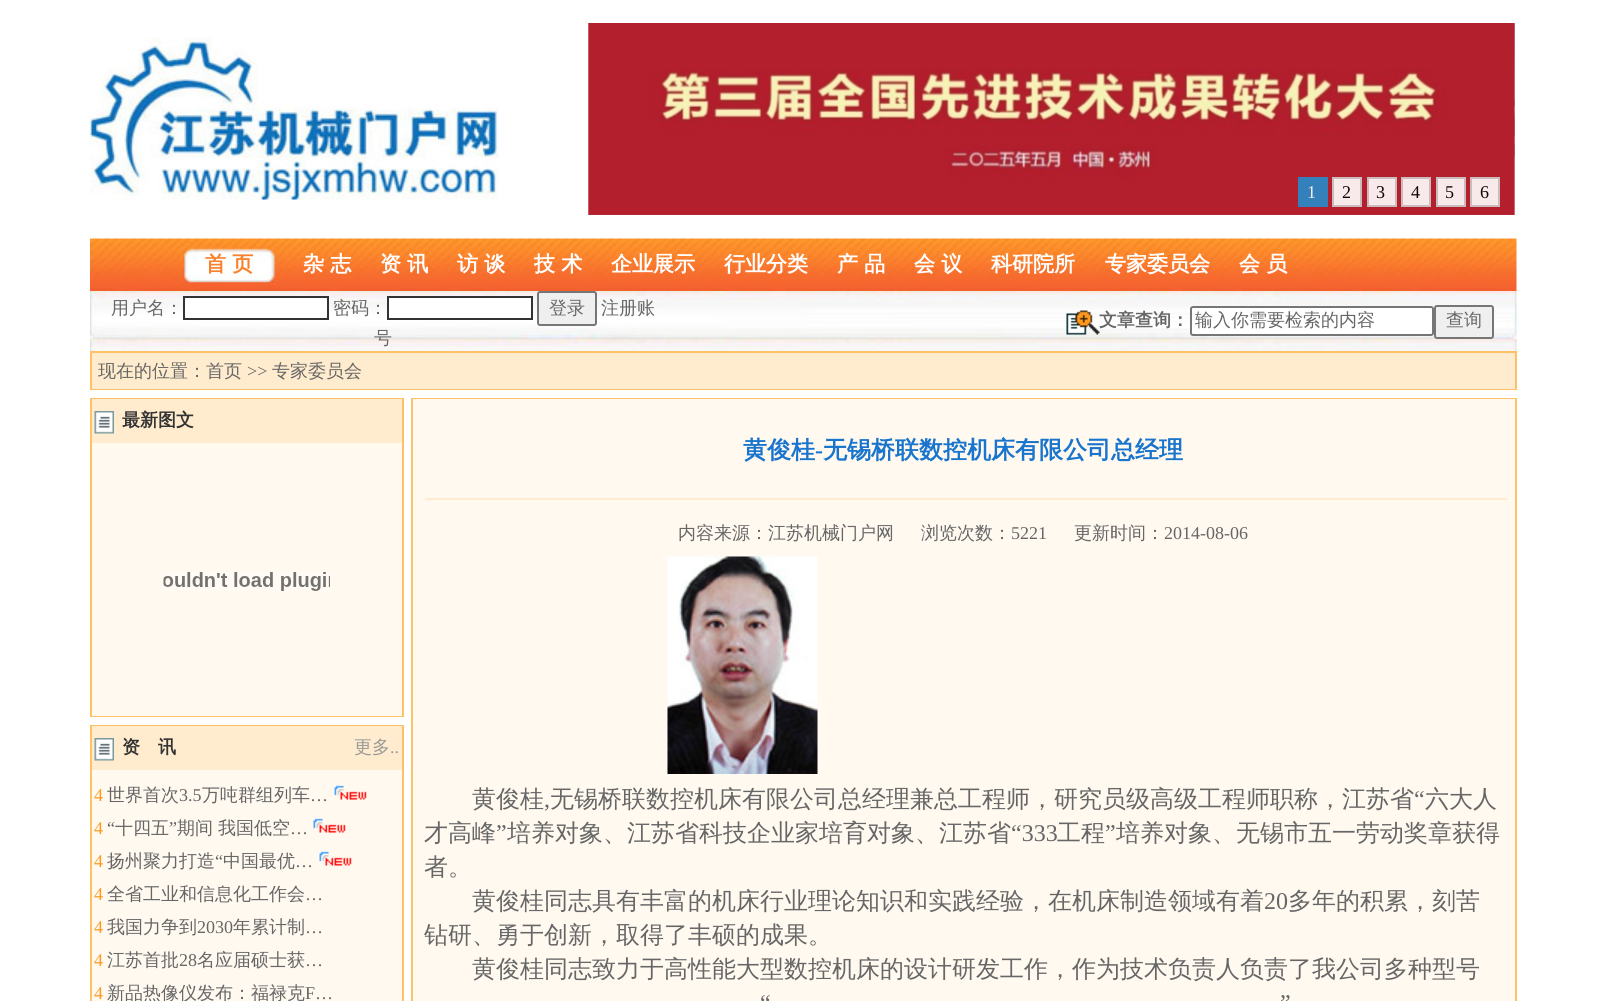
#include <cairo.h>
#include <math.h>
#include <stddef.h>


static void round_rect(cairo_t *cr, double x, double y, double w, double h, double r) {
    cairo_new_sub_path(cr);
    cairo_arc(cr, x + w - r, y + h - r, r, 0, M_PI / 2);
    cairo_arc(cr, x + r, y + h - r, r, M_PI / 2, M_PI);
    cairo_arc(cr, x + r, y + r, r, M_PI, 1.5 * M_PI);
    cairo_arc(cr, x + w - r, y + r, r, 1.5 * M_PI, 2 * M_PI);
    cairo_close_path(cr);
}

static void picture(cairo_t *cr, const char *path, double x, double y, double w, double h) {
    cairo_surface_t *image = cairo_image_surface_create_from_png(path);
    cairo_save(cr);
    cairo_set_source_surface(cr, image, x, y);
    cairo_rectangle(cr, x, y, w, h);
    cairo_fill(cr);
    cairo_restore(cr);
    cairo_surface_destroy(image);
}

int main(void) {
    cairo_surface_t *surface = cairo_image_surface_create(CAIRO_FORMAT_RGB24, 1605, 1001);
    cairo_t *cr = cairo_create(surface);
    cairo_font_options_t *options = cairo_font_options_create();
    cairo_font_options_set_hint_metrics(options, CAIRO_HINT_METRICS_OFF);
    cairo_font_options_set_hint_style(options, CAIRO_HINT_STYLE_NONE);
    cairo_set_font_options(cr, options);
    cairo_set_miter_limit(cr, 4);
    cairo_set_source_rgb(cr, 1, 1, 1);
    cairo_paint(cr);
    picture(cr, "img1.png", 90, 37, 409, 163);
    picture(cr, "img2.png", 588, 23, 927, 192);
    picture(cr, "img3.png", 1514, 23, 1, 192);
    cairo_set_source_rgb(cr, 0.204, 0.502, 0.733);
    cairo_rectangle(cr, 1298, 177, 30, 30);
    cairo_fill(cr);
    cairo_select_font_face(cr, "Liberation Serif", CAIRO_FONT_SLANT_NORMAL, CAIRO_FONT_WEIGHT_NORMAL);
    cairo_set_font_size(cr, 18);
    cairo_set_source_rgb(cr, 0.969, 0.914, 0.918);
    cairo_move_to(cr, 1307, 198);
    cairo_show_text(cr, "1");
    cairo_rectangle(cr, 1333, 178, 28, 28);
    cairo_fill_preserve(cr);
    cairo_set_source_rgb(cr, 0.792, 0.733, 0.737);
    cairo_stroke(cr);
    cairo_set_source_rgb(cr, 0.071, 0.012, 0.02);
    cairo_move_to(cr, 1342, 198);
    cairo_show_text(cr, "2");
    cairo_set_source_rgb(cr, 0.969, 0.914, 0.918);
    cairo_rectangle(cr, 1368, 178, 28, 28);
    cairo_fill_preserve(cr);
    cairo_set_source_rgb(cr, 0.792, 0.733, 0.737);
    cairo_stroke(cr);
    cairo_set_source_rgb(cr, 0.071, 0.012, 0.02);
    cairo_move_to(cr, 1376, 198);
    cairo_show_text(cr, "3");
    cairo_set_source_rgb(cr, 0.969, 0.914, 0.918);
    cairo_rectangle(cr, 1402, 178, 28, 28);
    cairo_fill_preserve(cr);
    cairo_set_source_rgb(cr, 0.792, 0.733, 0.737);
    cairo_stroke(cr);
    cairo_set_source_rgb(cr, 0.071, 0.012, 0.02);
    cairo_move_to(cr, 1411, 198);
    cairo_show_text(cr, "4");
    cairo_set_source_rgb(cr, 0.969, 0.914, 0.918);
    cairo_rectangle(cr, 1437, 178, 28, 28);
    cairo_fill_preserve(cr);
    cairo_set_source_rgb(cr, 0.792, 0.733, 0.737);
    cairo_stroke(cr);
    cairo_set_source_rgb(cr, 0.071, 0.012, 0.02);
    cairo_move_to(cr, 1445, 198);
    cairo_show_text(cr, "5");
    cairo_set_source_rgb(cr, 0.969, 0.914, 0.918);
    cairo_rectangle(cr, 1471, 178, 28, 28);
    cairo_fill_preserve(cr);
    cairo_set_source_rgb(cr, 0.792, 0.733, 0.737);
    cairo_stroke(cr);
    cairo_set_source_rgb(cr, 0.071, 0.012, 0.02);
    cairo_move_to(cr, 1480, 198);
    cairo_show_text(cr, "6");
    picture(cr, "img4.png", 90, 238, 1427, 53);
    cairo_select_font_face(cr, "WenQuanYi Zen Hei", CAIRO_FONT_SLANT_NORMAL, CAIRO_FONT_WEIGHT_BOLD);
    cairo_set_font_size(cr, 21);
    cairo_set_source_rgb(cr, 0.976, 0.506, 0.169);
    cairo_move_to(cr, 205, 271);
    cairo_show_text(cr, "首 页");
    cairo_set_source_rgb(cr, 1, 1, 1);
    cairo_move_to(cr, 303, 271);
    cairo_show_text(cr, "杂 志");
    cairo_move_to(cr, 380, 271);
    cairo_show_text(cr, "资 讯");
    cairo_move_to(cr, 457, 271);
    cairo_show_text(cr, "访 谈");
    cairo_move_to(cr, 534, 271);
    cairo_show_text(cr, "技 术");
    cairo_move_to(cr, 611, 271);
    cairo_show_text(cr, "企业展示");
    cairo_move_to(cr, 724, 271);
    cairo_show_text(cr, "行业分类");
    cairo_move_to(cr, 837, 271);
    cairo_show_text(cr, "产 品");
    cairo_move_to(cr, 914, 271);
    cairo_show_text(cr, "会 议");
    cairo_move_to(cr, 991, 271);
    cairo_show_text(cr, "科研院所");
    cairo_move_to(cr, 1105, 271);
    cairo_show_text(cr, "专家委员会");
    cairo_move_to(cr, 1239, 271);
    cairo_show_text(cr, "会 员");
    picture(cr, "img5.png", 90, 291, 1427, 60);
    cairo_select_font_face(cr, "WenQuanYi Zen Hei Medium", CAIRO_FONT_SLANT_NORMAL, CAIRO_FONT_WEIGHT_NORMAL);
    cairo_set_font_size(cr, 18);
    cairo_set_source_rgb(cr, 0.4, 0.4, 0.4);
    cairo_move_to(cr, 111, 314);
    cairo_show_text(cr, "用户名：");
    cairo_set_source_rgb(cr, 1, 1, 1);
    cairo_rectangle(cr, 185, 298, 142, 15);
    cairo_fill(cr);
    cairo_rectangle(cr, 184, 297, 144, 22);
    cairo_set_source_rgb(cr, 0.2, 0.2, 0.2);
    cairo_stroke(cr);
    cairo_set_source_rgb(cr, 0.4, 0.4, 0.4);
    cairo_move_to(cr, 333, 314);
    cairo_show_text(cr, "密码：");
    cairo_set_source_rgb(cr, 1, 1, 1);
    cairo_rectangle(cr, 389, 298, 142, 15);
    cairo_fill(cr);
    cairo_rectangle(cr, 388, 297, 144, 22);
    cairo_set_source_rgb(cr, 0.2, 0.2, 0.2);
    cairo_stroke(cr);
    cairo_set_source_rgb(cr, 0.937, 0.937, 0.937);
    round_rect(cr, 538, 292, 58, 33, 2);
    cairo_fill_preserve(cr);
    cairo_set_source_rgb(cr, 0.463, 0.463, 0.463);
    cairo_stroke(cr);
    cairo_set_source_rgb(cr, 0.4, 0.4, 0.4);
    cairo_move_to(cr, 549, 314);
    cairo_show_text(cr, "登录");
    cairo_move_to(cr, 601, 314);
    cairo_show_text(cr, "注册账");
    cairo_move_to(cr, 374, 344);
    cairo_show_text(cr, "号");
    picture(cr, "img6.png", 1066, 310, 34, 25);
    cairo_select_font_face(cr, "WenQuanYi Zen Hei", CAIRO_FONT_SLANT_NORMAL, CAIRO_FONT_WEIGHT_BOLD);
    cairo_move_to(cr, 1099, 326);
    cairo_show_text(cr, "文章查询：");
    cairo_set_source_rgb(cr, 1, 1, 1);
    round_rect(cr, 1191, 307, 242, 28, 2);
    cairo_fill_preserve(cr);
    cairo_set_source_rgb(cr, 0.463, 0.463, 0.463);
    cairo_stroke(cr);
    cairo_select_font_face(cr, "WenQuanYi Zen Hei Medium", CAIRO_FONT_SLANT_NORMAL, CAIRO_FONT_WEIGHT_NORMAL);
    cairo_set_source_rgb(cr, 0.4, 0.4, 0.4);
    cairo_move_to(cr, 1195, 326);
    cairo_show_text(cr, "输入你需要检索的内容");
    cairo_set_source_rgb(cr, 0.937, 0.937, 0.937);
    round_rect(cr, 1435, 306, 58, 32, 2);
    cairo_fill_preserve(cr);
    cairo_set_source_rgb(cr, 0.463, 0.463, 0.463);
    cairo_stroke(cr);
    cairo_set_source_rgb(cr, 0.4, 0.4, 0.4);
    cairo_move_to(cr, 1446, 326);
    cairo_show_text(cr, "查询");
    cairo_set_source_rgb(cr, 1, 0.757, 0.4);
    cairo_rectangle(cr, 90, 351, 1427, 39);
    cairo_fill(cr);
    cairo_set_source_rgb(cr, 1, 0.925, 0.808);
    cairo_rectangle(cr, 92, 353, 1423, 36);
    cairo_fill(cr);
    cairo_set_source_rgb(cr, 0.4, 0.4, 0.4);
    cairo_move_to(cr, 98, 377);
    cairo_show_text(cr, "现在的位置：首页");
    cairo_select_font_face(cr, "Liberation Serif", CAIRO_FONT_SLANT_NORMAL, CAIRO_FONT_WEIGHT_NORMAL);
    cairo_move_to(cr, 247, 377);
    cairo_show_text(cr, ">>");
    cairo_select_font_face(cr, "WenQuanYi Zen Hei Medium", CAIRO_FONT_SLANT_NORMAL, CAIRO_FONT_WEIGHT_NORMAL);
    cairo_move_to(cr, 272, 377);
    cairo_show_text(cr, "专家委员会");
    cairo_set_source_rgb(cr, 1, 0.757, 0.4);
    cairo_rectangle(cr, 90, 398, 314, 319);
    cairo_fill(cr);
    cairo_set_source_rgb(cr, 1, 0.925, 0.808);
    cairo_rectangle(cr, 92, 399, 310, 44);
    cairo_fill(cr);
    picture(cr, "img7.png", 94, 411, 20, 23);
    cairo_select_font_face(cr, "WenQuanYi Zen Hei", CAIRO_FONT_SLANT_NORMAL, CAIRO_FONT_WEIGHT_BOLD);
    cairo_set_source_rgb(cr, 0.2, 0.2, 0.2);
    cairo_move_to(cr, 122, 426);
    cairo_show_text(cr, "最新图文");
    cairo_set_source_rgb(cr, 1, 0.973, 0.941);
    cairo_rectangle(cr, 92, 443, 310, 273);
    cairo_fill(cr);
    picture(cr, "img8.png", 163, 572, 167, 19);
    cairo_set_source_rgb(cr, 1, 0.757, 0.4);
    cairo_rectangle(cr, 90, 725, 314, 276);
    cairo_fill(cr);
    cairo_set_source_rgb(cr, 1, 0.925, 0.808);
    cairo_rectangle(cr, 92, 726, 310, 44);
    cairo_fill(cr);
    picture(cr, "img7.png", 94, 738, 20, 23);
    cairo_set_source_rgb(cr, 0.2, 0.2, 0.2);
    cairo_move_to(cr, 122, 753);
    cairo_show_text(cr, "资");
    cairo_move_to(cr, 158, 753);
    cairo_show_text(cr, "讯");
    cairo_select_font_face(cr, "WenQuanYi Zen Hei Medium", CAIRO_FONT_SLANT_NORMAL, CAIRO_FONT_WEIGHT_NORMAL);
    cairo_set_source_rgb(cr, 0.6, 0.6, 0.6);
    cairo_move_to(cr, 354, 753);
    cairo_show_text(cr, "更多");
    cairo_select_font_face(cr, "Liberation Serif", CAIRO_FONT_SLANT_NORMAL, CAIRO_FONT_WEIGHT_NORMAL);
    cairo_move_to(cr, 390, 753);
    cairo_show_text(cr, "..");
    cairo_set_source_rgb(cr, 1, 0.973, 0.941);
    cairo_rectangle(cr, 92, 770, 310, 231);
    cairo_fill(cr);
    cairo_set_source_rgb(cr, 1, 0.596, 0.122);
    cairo_move_to(cr, 94, 801);
    cairo_show_text(cr, "4");
    cairo_select_font_face(cr, "WenQuanYi Zen Hei Medium", CAIRO_FONT_SLANT_NORMAL, CAIRO_FONT_WEIGHT_NORMAL);
    cairo_set_source_rgb(cr, 0.4, 0.4, 0.4);
    cairo_move_to(cr, 107, 801);
    cairo_show_text(cr, "世界首次");
    cairo_select_font_face(cr, "Liberation Serif", CAIRO_FONT_SLANT_NORMAL, CAIRO_FONT_WEIGHT_NORMAL);
    cairo_move_to(cr, 179, 801);
    cairo_show_text(cr, "3.5");
    cairo_select_font_face(cr, "WenQuanYi Zen Hei Medium", CAIRO_FONT_SLANT_NORMAL, CAIRO_FONT_WEIGHT_NORMAL);
    cairo_move_to(cr, 202, 801);
    cairo_show_text(cr, "万吨群组列车");
    cairo_select_font_face(cr, "Liberation Serif", CAIRO_FONT_SLANT_NORMAL, CAIRO_FONT_WEIGHT_NORMAL);
    cairo_move_to(cr, 310, 801);
    cairo_show_text(cr, "…");
    picture(cr, "img9.png", 334, 785, 33, 15);
    cairo_set_source_rgb(cr, 1, 0.596, 0.122);
    cairo_move_to(cr, 94, 834);
    cairo_show_text(cr, "4");
    cairo_set_source_rgb(cr, 0.4, 0.4, 0.4);
    cairo_move_to(cr, 107, 834);
    cairo_show_text(cr, "“");
    cairo_select_font_face(cr, "WenQuanYi Zen Hei Medium", CAIRO_FONT_SLANT_NORMAL, CAIRO_FONT_WEIGHT_NORMAL);
    cairo_move_to(cr, 115, 834);
    cairo_show_text(cr, "十四五");
    cairo_select_font_face(cr, "Liberation Serif", CAIRO_FONT_SLANT_NORMAL, CAIRO_FONT_WEIGHT_NORMAL);
    cairo_move_to(cr, 169, 834);
    cairo_show_text(cr, "”");
    cairo_select_font_face(cr, "WenQuanYi Zen Hei Medium", CAIRO_FONT_SLANT_NORMAL, CAIRO_FONT_WEIGHT_NORMAL);
    cairo_move_to(cr, 177, 834);
    cairo_show_text(cr, "期间");
    cairo_move_to(cr, 218, 834);
    cairo_show_text(cr, "我国低空");
    picture(cr, "img9.png", 313, 818, 33, 15);
    cairo_select_font_face(cr, "Liberation Serif", CAIRO_FONT_SLANT_NORMAL, CAIRO_FONT_WEIGHT_NORMAL);
    cairo_move_to(cr, 290, 834);
    cairo_show_text(cr, "…");
    cairo_set_source_rgb(cr, 1, 0.596, 0.122);
    cairo_move_to(cr, 94, 867);
    cairo_show_text(cr, "4");
    cairo_select_font_face(cr, "WenQuanYi Zen Hei Medium", CAIRO_FONT_SLANT_NORMAL, CAIRO_FONT_WEIGHT_NORMAL);
    cairo_set_source_rgb(cr, 0.4, 0.4, 0.4);
    cairo_move_to(cr, 107, 867);
    cairo_show_text(cr, "扬州聚力打造");
    cairo_select_font_face(cr, "Liberation Serif", CAIRO_FONT_SLANT_NORMAL, CAIRO_FONT_WEIGHT_NORMAL);
    cairo_move_to(cr, 215, 867);
    cairo_show_text(cr, "“");
    cairo_select_font_face(cr, "WenQuanYi Zen Hei Medium", CAIRO_FONT_SLANT_NORMAL, CAIRO_FONT_WEIGHT_NORMAL);
    cairo_move_to(cr, 223, 867);
    cairo_show_text(cr, "中国最优");
    picture(cr, "img9.png", 319, 851, 33, 15);
    cairo_select_font_face(cr, "Liberation Serif", CAIRO_FONT_SLANT_NORMAL, CAIRO_FONT_WEIGHT_NORMAL);
    cairo_move_to(cr, 295, 867);
    cairo_show_text(cr, "…");
    cairo_set_source_rgb(cr, 1, 0.596, 0.122);
    cairo_move_to(cr, 94, 900);
    cairo_show_text(cr, "4");
    cairo_select_font_face(cr, "WenQuanYi Zen Hei Medium", CAIRO_FONT_SLANT_NORMAL, CAIRO_FONT_WEIGHT_NORMAL);
    cairo_set_source_rgb(cr, 0.4, 0.4, 0.4);
    cairo_move_to(cr, 107, 900);
    cairo_show_text(cr, "全省工业和信息化工作会");
    cairo_select_font_face(cr, "Liberation Serif", CAIRO_FONT_SLANT_NORMAL, CAIRO_FONT_WEIGHT_NORMAL);
    cairo_move_to(cr, 305, 900);
    cairo_show_text(cr, "…");
    cairo_set_source_rgb(cr, 1, 0.596, 0.122);
    cairo_move_to(cr, 94, 933);
    cairo_show_text(cr, "4");
    cairo_select_font_face(cr, "WenQuanYi Zen Hei Medium", CAIRO_FONT_SLANT_NORMAL, CAIRO_FONT_WEIGHT_NORMAL);
    cairo_set_source_rgb(cr, 0.4, 0.4, 0.4);
    cairo_move_to(cr, 107, 933);
    cairo_show_text(cr, "我国力争到");
    cairo_select_font_face(cr, "Liberation Serif", CAIRO_FONT_SLANT_NORMAL, CAIRO_FONT_WEIGHT_NORMAL);
    cairo_move_to(cr, 197, 933);
    cairo_show_text(cr, "2030");
    cairo_select_font_face(cr, "WenQuanYi Zen Hei Medium", CAIRO_FONT_SLANT_NORMAL, CAIRO_FONT_WEIGHT_NORMAL);
    cairo_move_to(cr, 233, 933);
    cairo_show_text(cr, "年累计制");
    cairo_select_font_face(cr, "Liberation Serif", CAIRO_FONT_SLANT_NORMAL, CAIRO_FONT_WEIGHT_NORMAL);
    cairo_move_to(cr, 305, 933);
    cairo_show_text(cr, "…");
    cairo_set_source_rgb(cr, 1, 0.596, 0.122);
    cairo_move_to(cr, 94, 966);
    cairo_show_text(cr, "4");
    cairo_select_font_face(cr, "WenQuanYi Zen Hei Medium", CAIRO_FONT_SLANT_NORMAL, CAIRO_FONT_WEIGHT_NORMAL);
    cairo_set_source_rgb(cr, 0.4, 0.4, 0.4);
    cairo_move_to(cr, 107, 966);
    cairo_show_text(cr, "江苏首批");
    cairo_select_font_face(cr, "Liberation Serif", CAIRO_FONT_SLANT_NORMAL, CAIRO_FONT_WEIGHT_NORMAL);
    cairo_move_to(cr, 179, 966);
    cairo_show_text(cr, "28");
    cairo_select_font_face(cr, "WenQuanYi Zen Hei Medium", CAIRO_FONT_SLANT_NORMAL, CAIRO_FONT_WEIGHT_NORMAL);
    cairo_move_to(cr, 197, 966);
    cairo_show_text(cr, "名应届硕士获");
    cairo_select_font_face(cr, "Liberation Serif", CAIRO_FONT_SLANT_NORMAL, CAIRO_FONT_WEIGHT_NORMAL);
    cairo_move_to(cr, 305, 966);
    cairo_show_text(cr, "…");
    cairo_set_source_rgb(cr, 1, 0.596, 0.122);
    cairo_move_to(cr, 94, 999);
    cairo_show_text(cr, "4");
    cairo_select_font_face(cr, "WenQuanYi Zen Hei Medium", CAIRO_FONT_SLANT_NORMAL, CAIRO_FONT_WEIGHT_NORMAL);
    cairo_set_source_rgb(cr, 0.4, 0.4, 0.4);
    cairo_move_to(cr, 107, 999);
    cairo_show_text(cr, "新品热像仪发布：福禄克");
    cairo_select_font_face(cr, "Liberation Serif", CAIRO_FONT_SLANT_NORMAL, CAIRO_FONT_WEIGHT_NORMAL);
    cairo_move_to(cr, 305, 999);
    cairo_show_text(cr, "F…");
    cairo_set_source_rgb(cr, 1, 0.757, 0.4);
    cairo_rectangle(cr, 411, 398, 1106, 603);
    cairo_fill(cr);
    cairo_set_source_rgb(cr, 1, 0.973, 0.941);
    cairo_rectangle(cr, 413, 399, 1102, 602);
    cairo_fill(cr);
    cairo_select_font_face(cr, "WenQuanYi Zen Hei", CAIRO_FONT_SLANT_NORMAL, CAIRO_FONT_WEIGHT_BOLD);
    cairo_set_font_size(cr, 24);
    cairo_set_source_rgb(cr, 0.094, 0.455, 0.804);
    cairo_move_to(cr, 743, 458);
    cairo_show_text(cr, "黄俊桂");
    cairo_select_font_face(cr, "Liberation Serif", CAIRO_FONT_SLANT_NORMAL, CAIRO_FONT_WEIGHT_BOLD);
    cairo_move_to(cr, 815, 458);
    cairo_show_text(cr, "-");
    cairo_select_font_face(cr, "WenQuanYi Zen Hei", CAIRO_FONT_SLANT_NORMAL, CAIRO_FONT_WEIGHT_BOLD);
    cairo_move_to(cr, 823, 458);
    cairo_show_text(cr, "无锡桥联数控机床有限公司总经理");
    cairo_set_source_rgb(cr, 1, 0.925, 0.808);
    cairo_rectangle(cr, 425, 498, 1082, 2);
    cairo_fill(cr);
    cairo_select_font_face(cr, "WenQuanYi Zen Hei Medium", CAIRO_FONT_SLANT_NORMAL, CAIRO_FONT_WEIGHT_NORMAL);
    cairo_set_font_size(cr, 18);
    cairo_set_source_rgb(cr, 0.4, 0.4, 0.4);
    cairo_move_to(cr, 678, 539);
    cairo_show_text(cr, "内容来源：江苏机械门户网");
    cairo_move_to(cr, 921, 539);
    cairo_show_text(cr, "浏览次数：");
    cairo_select_font_face(cr, "Liberation Serif", CAIRO_FONT_SLANT_NORMAL, CAIRO_FONT_WEIGHT_NORMAL);
    cairo_move_to(cr, 1011, 539);
    cairo_show_text(cr, "5221");
    cairo_select_font_face(cr, "WenQuanYi Zen Hei Medium", CAIRO_FONT_SLANT_NORMAL, CAIRO_FONT_WEIGHT_NORMAL);
    cairo_move_to(cr, 1074, 539);
    cairo_show_text(cr, "更新时间：");
    cairo_select_font_face(cr, "Liberation Serif", CAIRO_FONT_SLANT_NORMAL, CAIRO_FONT_WEIGHT_NORMAL);
    cairo_move_to(cr, 1164, 539);
    cairo_show_text(cr, "2014-08-06");
    picture(cr, "img10.png", 667, 556, 151, 218);
    cairo_select_font_face(cr, "WenQuanYi Zen Hei Medium", CAIRO_FONT_SLANT_NORMAL, CAIRO_FONT_WEIGHT_NORMAL);
    cairo_set_font_size(cr, 24);
    cairo_move_to(cr, 472, 807);
    cairo_show_text(cr, "黄俊桂");
    cairo_move_to(cr, 550, 807);
    cairo_show_text(cr, "无锡桥联数控机床有限公司总经理兼总工程师，研究员级高级工程师职称，江苏省");
    cairo_select_font_face(cr, "Liberation Serif", CAIRO_FONT_SLANT_NORMAL, CAIRO_FONT_WEIGHT_NORMAL);
    cairo_move_to(cr, 1414, 807);
    cairo_show_text(cr, "“");
    cairo_select_font_face(cr, "WenQuanYi Zen Hei Medium", CAIRO_FONT_SLANT_NORMAL, CAIRO_FONT_WEIGHT_NORMAL);
    cairo_move_to(cr, 1425, 807);
    cairo_show_text(cr, "六大人");
    cairo_select_font_face(cr, "Liberation Serif", CAIRO_FONT_SLANT_NORMAL, CAIRO_FONT_WEIGHT_NORMAL);
    cairo_move_to(cr, 544, 807);
    cairo_show_text(cr, ",");
    cairo_select_font_face(cr, "WenQuanYi Zen Hei Medium", CAIRO_FONT_SLANT_NORMAL, CAIRO_FONT_WEIGHT_NORMAL);
    cairo_move_to(cr, 424, 841);
    cairo_show_text(cr, "才高峰");
    cairo_select_font_face(cr, "Liberation Serif", CAIRO_FONT_SLANT_NORMAL, CAIRO_FONT_WEIGHT_NORMAL);
    cairo_move_to(cr, 496, 841);
    cairo_show_text(cr, "”");
    cairo_select_font_face(cr, "WenQuanYi Zen Hei Medium", CAIRO_FONT_SLANT_NORMAL, CAIRO_FONT_WEIGHT_NORMAL);
    cairo_move_to(cr, 507, 841);
    cairo_show_text(cr, "培养对象、江苏省科技企业家培育对象、江苏省");
    cairo_select_font_face(cr, "Liberation Serif", CAIRO_FONT_SLANT_NORMAL, CAIRO_FONT_WEIGHT_NORMAL);
    cairo_move_to(cr, 1011, 841);
    cairo_show_text(cr, "“333");
    cairo_select_font_face(cr, "WenQuanYi Zen Hei Medium", CAIRO_FONT_SLANT_NORMAL, CAIRO_FONT_WEIGHT_NORMAL);
    cairo_move_to(cr, 1057, 841);
    cairo_show_text(cr, "工程");
    cairo_select_font_face(cr, "Liberation Serif", CAIRO_FONT_SLANT_NORMAL, CAIRO_FONT_WEIGHT_NORMAL);
    cairo_move_to(cr, 1105, 841);
    cairo_show_text(cr, "”");
    cairo_select_font_face(cr, "WenQuanYi Zen Hei Medium", CAIRO_FONT_SLANT_NORMAL, CAIRO_FONT_WEIGHT_NORMAL);
    cairo_move_to(cr, 1116, 841);
    cairo_show_text(cr, "培养对象、无锡市五一劳动奖章获得");
    cairo_move_to(cr, 424, 875);
    cairo_show_text(cr, "者。");
    cairo_move_to(cr, 472, 909);
    cairo_show_text(cr, "黄俊桂同志具有丰富的机床行业理论知识和实践经验，在机床制造领域有着");
    cairo_select_font_face(cr, "Liberation Serif", CAIRO_FONT_SLANT_NORMAL, CAIRO_FONT_WEIGHT_NORMAL);
    cairo_move_to(cr, 1264, 909);
    cairo_show_text(cr, "20");
    cairo_select_font_face(cr, "WenQuanYi Zen Hei Medium", CAIRO_FONT_SLANT_NORMAL, CAIRO_FONT_WEIGHT_NORMAL);
    cairo_move_to(cr, 1288, 909);
    cairo_show_text(cr, "多年的积累，刻苦");
    cairo_move_to(cr, 424, 943);
    cairo_show_text(cr, "钻研、勇于创新，取得了丰硕的成果。");
    cairo_move_to(cr, 472, 977);
    cairo_show_text(cr, "黄俊桂同志致力于高性能大型数控机床的设计研发工作，作为技术负责人负责了我公司多种型号");
    cairo_select_font_face(cr, "Liberation Serif", CAIRO_FONT_SLANT_NORMAL, CAIRO_FONT_WEIGHT_NORMAL);
    cairo_move_to(cr, 760, 1011);
    cairo_show_text(cr, "“");
    cairo_move_to(cr, 1280, 1011);
    cairo_show_text(cr, "”");
    cairo_surface_write_to_png(surface, "page.png");
    cairo_font_options_destroy(options);
    cairo_destroy(cr);
    cairo_surface_destroy(surface);
    return 0;
}
